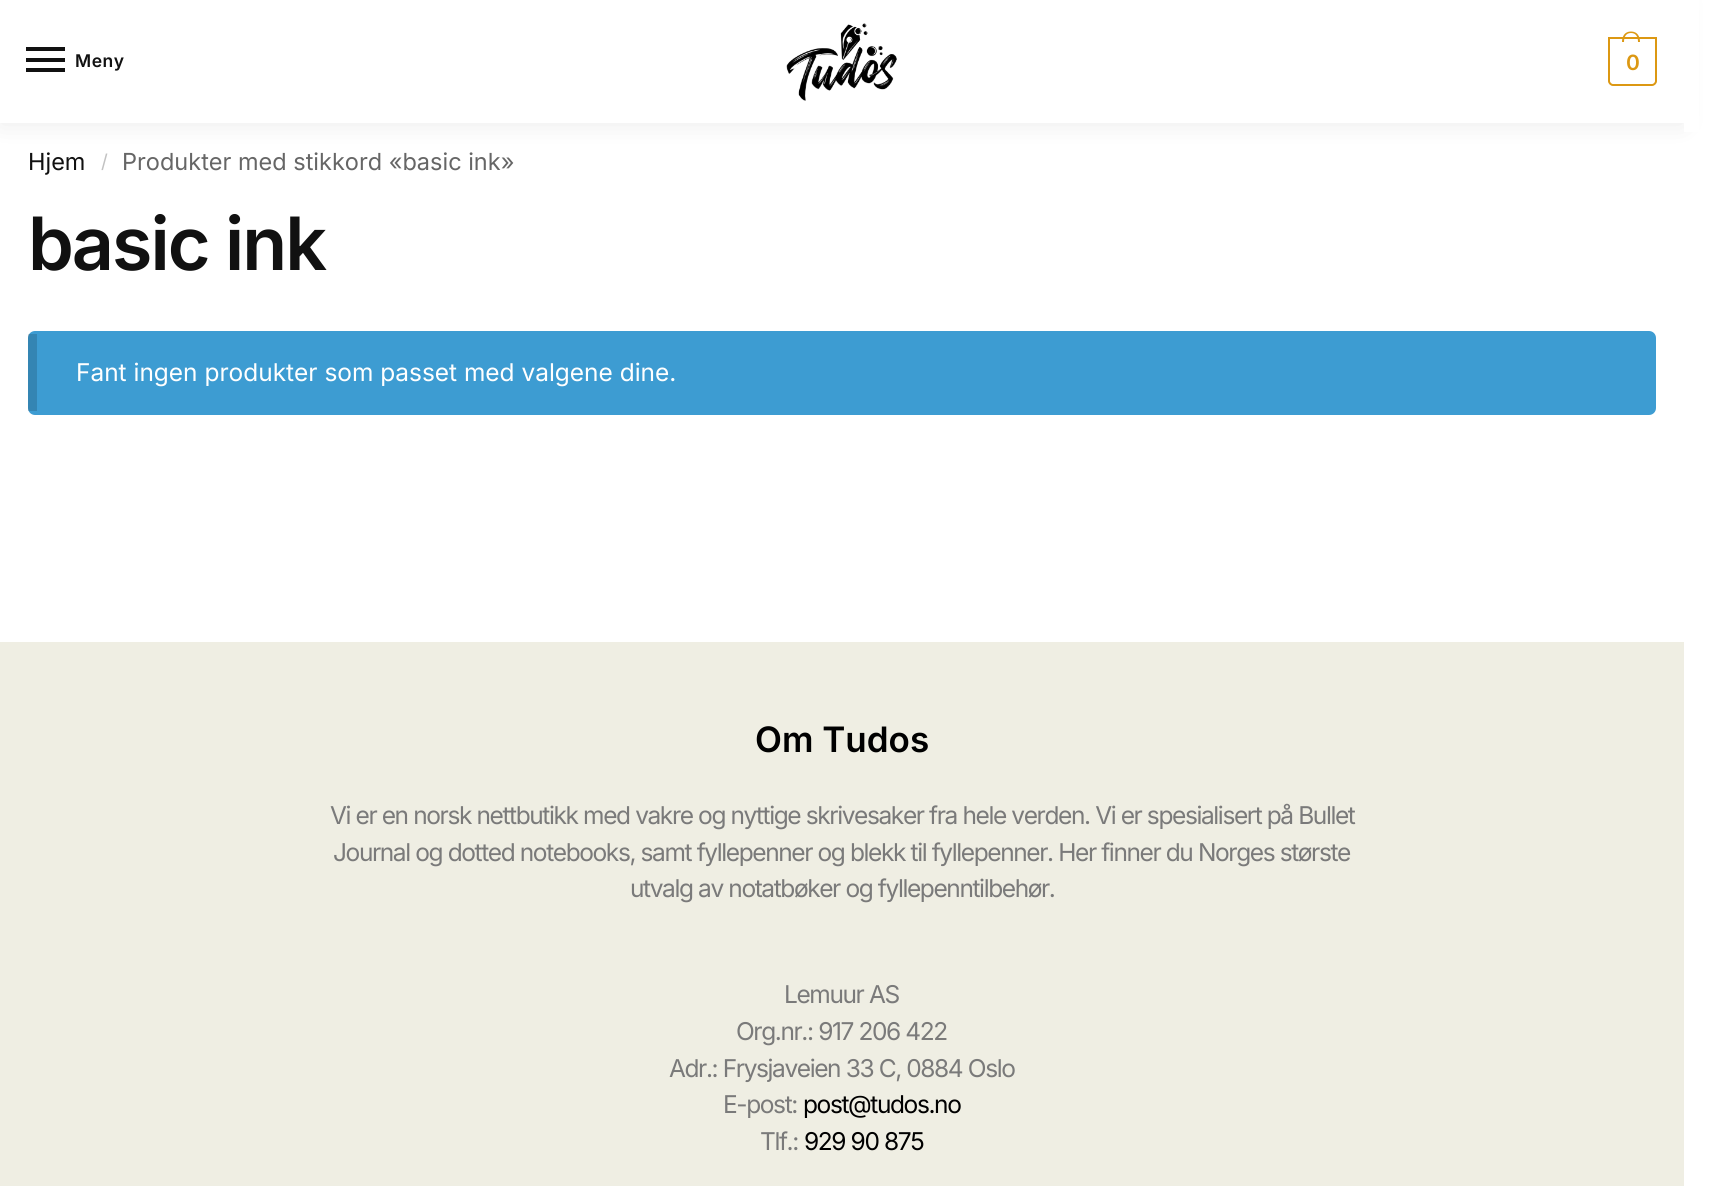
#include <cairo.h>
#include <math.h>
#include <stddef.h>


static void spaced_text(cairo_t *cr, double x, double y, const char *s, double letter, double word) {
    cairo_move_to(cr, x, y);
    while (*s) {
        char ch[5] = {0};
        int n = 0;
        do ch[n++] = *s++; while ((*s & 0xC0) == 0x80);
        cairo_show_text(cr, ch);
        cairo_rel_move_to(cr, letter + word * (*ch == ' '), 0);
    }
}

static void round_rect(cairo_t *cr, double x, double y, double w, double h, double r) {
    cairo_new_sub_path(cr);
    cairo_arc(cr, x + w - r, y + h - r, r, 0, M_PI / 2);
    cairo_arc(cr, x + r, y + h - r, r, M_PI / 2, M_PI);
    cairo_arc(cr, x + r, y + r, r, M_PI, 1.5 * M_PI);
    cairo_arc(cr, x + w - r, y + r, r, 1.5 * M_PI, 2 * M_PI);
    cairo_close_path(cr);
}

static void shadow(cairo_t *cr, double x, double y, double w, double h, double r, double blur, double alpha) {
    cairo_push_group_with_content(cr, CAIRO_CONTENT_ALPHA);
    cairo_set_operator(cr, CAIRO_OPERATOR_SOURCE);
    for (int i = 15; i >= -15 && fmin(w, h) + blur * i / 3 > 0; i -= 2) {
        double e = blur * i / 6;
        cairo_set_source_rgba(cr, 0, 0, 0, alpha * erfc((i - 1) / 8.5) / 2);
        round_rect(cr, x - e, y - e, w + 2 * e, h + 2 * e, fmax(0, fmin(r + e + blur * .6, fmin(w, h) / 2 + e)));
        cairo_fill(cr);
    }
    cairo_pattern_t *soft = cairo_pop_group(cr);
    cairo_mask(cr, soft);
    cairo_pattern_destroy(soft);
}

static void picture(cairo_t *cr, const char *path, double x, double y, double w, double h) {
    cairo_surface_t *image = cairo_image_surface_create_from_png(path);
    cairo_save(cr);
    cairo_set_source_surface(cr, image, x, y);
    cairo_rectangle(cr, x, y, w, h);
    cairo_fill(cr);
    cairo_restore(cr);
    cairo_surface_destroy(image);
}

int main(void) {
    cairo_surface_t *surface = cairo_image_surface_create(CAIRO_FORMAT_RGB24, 1709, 1186);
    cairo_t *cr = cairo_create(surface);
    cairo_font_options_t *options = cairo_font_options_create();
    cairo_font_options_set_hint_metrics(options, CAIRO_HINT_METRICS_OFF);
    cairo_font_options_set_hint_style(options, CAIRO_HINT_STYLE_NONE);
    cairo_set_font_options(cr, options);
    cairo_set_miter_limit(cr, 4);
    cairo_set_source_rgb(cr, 1, 1, 1);
    cairo_paint(cr);
    cairo_set_source_rgb(cr, 0, 0, 0);
    shadow(cr, 0, 2, 1684, 122, 0, 13, 0.08);
    cairo_set_source_rgb(cr, 1, 1, 1);
    cairo_rectangle(cr, 0, 0, 1684, 123);
    cairo_fill(cr);
    cairo_set_source_rgb(cr, 0.067, 0.067, 0.067);
    cairo_rectangle(cr, 26, 47, 39, 4);
    cairo_fill(cr);
    cairo_rectangle(cr, 26, 58, 39, 4);
    cairo_fill(cr);
    cairo_select_font_face(cr, "Inter SemiBold", CAIRO_FONT_SLANT_NORMAL, CAIRO_FONT_WEIGHT_NORMAL);
    cairo_set_font_size(cr, 17.5);
    spaced_text(cr, 75, 67, "Meny", 0.5, 0);
    cairo_rectangle(cr, 26, 68, 39, 4);
    cairo_fill(cr);
    picture(cr, "img1.png", 786, 23, 111, 78);
    cairo_new_path(cr);
    cairo_move_to(cr, 1609, 38);
    cairo_line_to(cr, 1656, 38);
    cairo_line_to(cr, 1656, 81);
    cairo_curve_to(cr, 1656, 83, 1654, 85, 1652, 85);
    cairo_line_to(cr, 1613, 85);
    cairo_curve_to(cr, 1611, 85, 1609, 83, 1609, 81);
    cairo_close_path(cr);
    cairo_set_source_rgb(cr, 0.863, 0.596, 0.078);
    cairo_stroke(cr);
    cairo_set_fill_rule(cr, CAIRO_FILL_RULE_EVEN_ODD);
    cairo_new_path(cr);
    cairo_move_to(cr, 1631, 31.5);
    cairo_curve_to(cr, 1637.5, 31.5, 1640, 36.5, 1640, 42);
    cairo_line_to(cr, 1622, 42);
    cairo_curve_to(cr, 1622, 36.5, 1624.5, 31.5, 1631, 31.5);
    cairo_close_path(cr);
    cairo_move_to(cr, 1631, 33);
    cairo_curve_to(cr, 1636.5, 33, 1638, 37.5, 1638, 42);
    cairo_line_to(cr, 1624, 42);
    cairo_curve_to(cr, 1624, 37.5, 1625.5, 33, 1631, 33);
    cairo_close_path(cr);
    cairo_fill(cr);
    cairo_set_font_size(cr, 21);
    spaced_text(cr, 1626, 70, "0", -1, 0);
    cairo_set_source_rgb(cr, 1, 1, 1);
    cairo_rectangle(cr, 1684, 0, 15, 132);
    cairo_fill(cr);
    cairo_select_font_face(cr, "Inter", CAIRO_FONT_SLANT_NORMAL, CAIRO_FONT_WEIGHT_NORMAL);
    cairo_set_font_size(cr, 23.5);
    cairo_set_source_rgb(cr, 0.067, 0.067, 0.067);
    cairo_move_to(cr, 28, 170);
    cairo_show_text(cr, "Hjem");
    cairo_set_font_size(cr, 19);
    cairo_set_source_rgb(cr, 0.761, 0.761, 0.761);
    cairo_move_to(cr, 101, 168);
    cairo_show_text(cr, "/");
    cairo_set_font_size(cr, 23.5);
    cairo_set_source_rgb(cr, 0.4, 0.4, 0.4);
    cairo_move_to(cr, 122, 170);
    cairo_show_text(cr, "Produkter med stikkord «basic ink»");
    cairo_select_font_face(cr, "Inter SemiBold", CAIRO_FONT_SLANT_NORMAL, CAIRO_FONT_WEIGHT_NORMAL);
    cairo_set_font_size(cr, 73.5);
    cairo_set_source_rgb(cr, 0.067, 0.067, 0.067);
    spaced_text(cr, 28, 270, "basic ink", -2, 0);
    cairo_set_source_rgb(cr, 0.239, 0.612, 0.824);
    round_rect(cr, 28, 331, 1628, 84, 7);
    cairo_fill(cr);
    cairo_set_source_rgba(cr, 0, 0, 0, 0.15);
    cairo_rectangle(cr, 28, 334, 9, 77);
    cairo_fill(cr);
    cairo_select_font_face(cr, "Inter", CAIRO_FONT_SLANT_NORMAL, CAIRO_FONT_WEIGHT_NORMAL);
    cairo_set_font_size(cr, 24.45);
    cairo_set_source_rgb(cr, 1, 1, 1);
    cairo_move_to(cr, 76, 381);
    cairo_show_text(cr, "Fant ingen produkter som passet med valgene dine.");
    cairo_set_source_rgb(cr, 0.937, 0.933, 0.89);
    cairo_rectangle(cr, 0, 642, 1684, 544);
    cairo_fill(cr);
    cairo_select_font_face(cr, "Inter SemiBold", CAIRO_FONT_SLANT_NORMAL, CAIRO_FONT_WEIGHT_NORMAL);
    cairo_set_font_size(cr, 35);
    cairo_set_source_rgb(cr, 0, 0, 0);
    cairo_move_to(cr, 755, 752);
    cairo_show_text(cr, "Om Tudos");
    cairo_select_font_face(cr, "Inter", CAIRO_FONT_SLANT_NORMAL, CAIRO_FONT_WEIGHT_NORMAL);
    cairo_set_font_size(cr, 24.5);
    cairo_set_source_rgb(cr, 0.478, 0.478, 0.478);
    spaced_text(cr, 330, 824, "Vi er en norsk nettbutikk med vakre og nyttige skrivesaker fra hele verden. Vi er spesialisert på Bullet", -1.4, 0);
    spaced_text(cr, 333, 861, "Journal og dotted notebooks, samt fyllepenner og blekk til fyllepenner. Her finner du Norges største", -1.4, 0);
    spaced_text(cr, 630, 897, "utvalg av notatbøker og fyllepenntilbehør.", -1.4, 0);
    spaced_text(cr, 784, 1003, "Lemuur AS", -1.4, 0);
    spaced_text(cr, 736, 1040, "Org.nr.: 917 206 422", -1.4, 0);
    spaced_text(cr, 669, 1077, "Adr.: Frysjaveien 33 C, 0884 Oslo", -1.4, 0);
    spaced_text(cr, 723, 1113, "E-post:", -1.4, 0);
    cairo_set_source_rgb(cr, 0, 0, 0);
    spaced_text(cr, 803, 1113, "post@tudos.no", -1.4, 0);
    cairo_set_source_rgb(cr, 0.478, 0.478, 0.478);
    spaced_text(cr, 760, 1150, "Tlf.:", -1.4, 0);
    cairo_set_source_rgb(cr, 0, 0, 0);
    spaced_text(cr, 804, 1150, "929 90 875", -1.4, 0);
    cairo_surface_write_to_png(surface, "page.png");
    cairo_font_options_destroy(options);
    cairo_destroy(cr);
    cairo_surface_destroy(surface);
    return 0;
}
